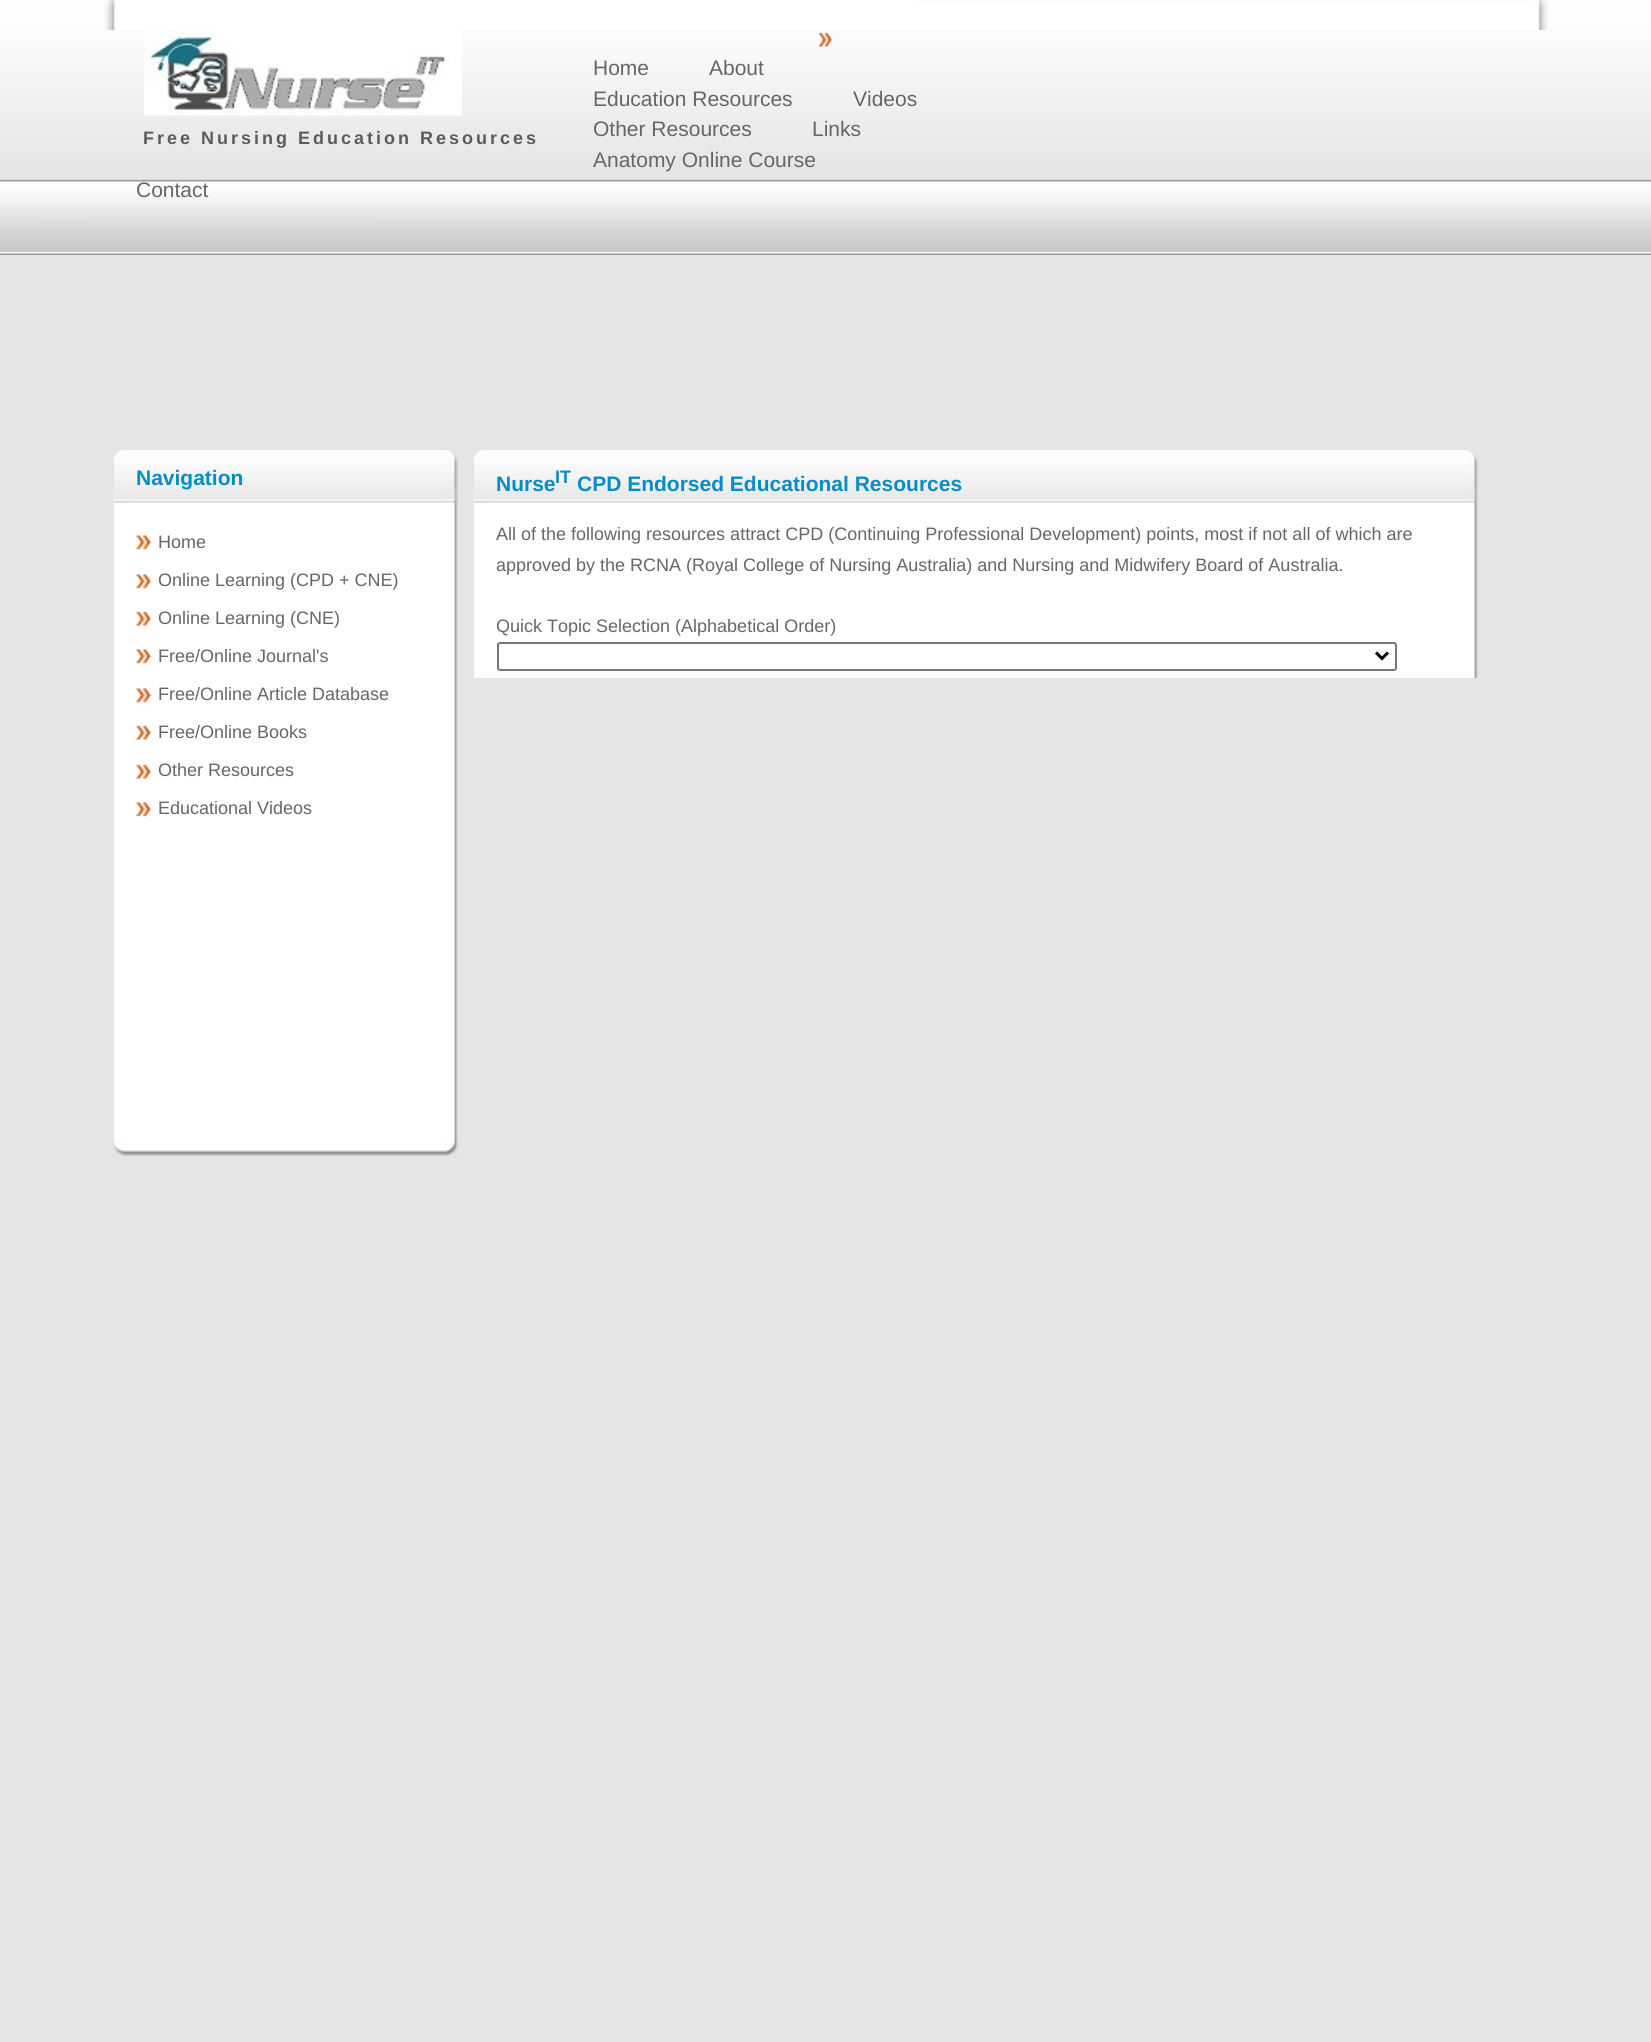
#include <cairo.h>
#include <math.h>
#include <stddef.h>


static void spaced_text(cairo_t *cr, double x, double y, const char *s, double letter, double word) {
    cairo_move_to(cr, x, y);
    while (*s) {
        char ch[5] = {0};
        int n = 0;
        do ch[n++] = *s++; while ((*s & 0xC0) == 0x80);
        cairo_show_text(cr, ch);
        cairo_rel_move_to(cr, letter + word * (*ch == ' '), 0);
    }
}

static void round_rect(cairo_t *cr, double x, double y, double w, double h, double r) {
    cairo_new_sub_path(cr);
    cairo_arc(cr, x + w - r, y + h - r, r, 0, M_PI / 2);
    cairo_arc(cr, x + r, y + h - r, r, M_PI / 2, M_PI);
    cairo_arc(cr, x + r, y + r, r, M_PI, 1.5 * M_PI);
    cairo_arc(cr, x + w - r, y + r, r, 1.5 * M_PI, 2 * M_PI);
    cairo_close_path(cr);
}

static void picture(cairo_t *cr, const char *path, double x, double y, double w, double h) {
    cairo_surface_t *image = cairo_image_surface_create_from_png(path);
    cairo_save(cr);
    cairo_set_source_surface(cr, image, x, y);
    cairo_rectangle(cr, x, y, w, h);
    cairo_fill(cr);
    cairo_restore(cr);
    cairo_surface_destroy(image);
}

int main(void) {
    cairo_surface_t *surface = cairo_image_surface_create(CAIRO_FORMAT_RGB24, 1651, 2042);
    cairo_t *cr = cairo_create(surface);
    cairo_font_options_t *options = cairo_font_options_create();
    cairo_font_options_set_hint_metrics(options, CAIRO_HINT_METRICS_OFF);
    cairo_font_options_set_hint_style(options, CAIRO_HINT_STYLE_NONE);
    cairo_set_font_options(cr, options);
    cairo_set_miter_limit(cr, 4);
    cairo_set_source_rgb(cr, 0.898, 0.898, 0.898);
    cairo_paint(cr);
    picture(cr, "img1.png", 0, 0, 1651, 255);
    picture(cr, "img2.png", 819, 32, 14, 15);
    cairo_select_font_face(cr, "Liberation Sans", CAIRO_FONT_SLANT_NORMAL, CAIRO_FONT_WEIGHT_NORMAL);
    cairo_set_font_size(cr, 21);
    cairo_set_source_rgb(cr, 0.4, 0.4, 0.4);
    cairo_move_to(cr, 593, 75);
    cairo_show_text(cr, "Home");
    cairo_move_to(cr, 709, 75);
    cairo_show_text(cr, "About");
    cairo_move_to(cr, 593, 106);
    cairo_show_text(cr, "Education Resources");
    cairo_move_to(cr, 853, 106);
    cairo_show_text(cr, "Videos");
    cairo_move_to(cr, 593, 136);
    cairo_show_text(cr, "Other Resources");
    cairo_move_to(cr, 812, 136);
    cairo_show_text(cr, "Links");
    cairo_move_to(cr, 593, 167);
    cairo_show_text(cr, "Anatomy Online Course");
    cairo_move_to(cr, 136, 197);
    cairo_show_text(cr, "Contact");
    picture(cr, "img3.png", 104, 0, 1445, 30);
    picture(cr, "img4.png", 144, 30, 318, 86);
    cairo_select_font_face(cr, "Liberation Sans", CAIRO_FONT_SLANT_NORMAL, CAIRO_FONT_WEIGHT_BOLD);
    cairo_set_font_size(cr, 18);
    cairo_set_source_rgb(cr, 0.365, 0.357, 0.357);
    spaced_text(cr, 143, 144, "Free Nursing Education Resources", 3, 0);
    picture(cr, "img5.png", 114, 502, 344, 655);
    picture(cr, "img6.png", 114, 450, 345, 53);
    picture(cr, "img7.png", 114, 450, 15, 53);
    cairo_set_font_size(cr, 21);
    cairo_set_source_rgb(cr, 0.016, 0.553, 0.776);
    cairo_move_to(cr, 136, 485);
    cairo_show_text(cr, "Navigation");
    picture(cr, "img8.png", 136, 535, 16, 15);
    cairo_select_font_face(cr, "Liberation Sans", CAIRO_FONT_SLANT_NORMAL, CAIRO_FONT_WEIGHT_NORMAL);
    cairo_set_font_size(cr, 18);
    cairo_set_source_rgb(cr, 0.4, 0.4, 0.4);
    cairo_move_to(cr, 158, 548);
    cairo_show_text(cr, "Home");
    picture(cr, "img8.png", 136, 574, 16, 15);
    cairo_move_to(cr, 158, 586);
    cairo_show_text(cr, "Online Learning (CPD + CNE)");
    picture(cr, "img9.png", 136, 611, 16, 15);
    cairo_move_to(cr, 158, 624);
    cairo_show_text(cr, "Online Learning (CNE)");
    picture(cr, "img8.png", 136, 649, 16, 15);
    cairo_move_to(cr, 158, 662);
    cairo_show_text(cr, "Free/Online Journal's");
    picture(cr, "img8.png", 136, 688, 16, 15);
    cairo_move_to(cr, 158, 700);
    cairo_show_text(cr, "Free/Online Article Database");
    picture(cr, "img9.png", 136, 725, 16, 15);
    cairo_move_to(cr, 158, 738);
    cairo_show_text(cr, "Free/Online Books");
    picture(cr, "img9.png", 136, 764, 16, 15);
    cairo_move_to(cr, 158, 776);
    cairo_show_text(cr, "Other Resources");
    picture(cr, "img8.png", 136, 802, 16, 15);
    cairo_move_to(cr, 158, 814);
    cairo_show_text(cr, "Educational Videos");
    picture(cr, "img10.png", 114, 1139, 345, 18);
    picture(cr, "img11.png", 114, 1140, 15, 17);
    picture(cr, "img12.png", 474, 502, 1004, 176);
    picture(cr, "img13.png", 474, 450, 1005, 53);
    picture(cr, "img14.png", 474, 450, 15, 53);
    cairo_select_font_face(cr, "Liberation Sans", CAIRO_FONT_SLANT_NORMAL, CAIRO_FONT_WEIGHT_BOLD);
    cairo_set_font_size(cr, 21);
    cairo_set_source_rgb(cr, 0.016, 0.553, 0.776);
    cairo_move_to(cr, 496, 491);
    cairo_show_text(cr, "Nurse");
    cairo_set_font_size(cr, 18);
    cairo_move_to(cr, 555, 483);
    cairo_show_text(cr, "IT");
    cairo_set_font_size(cr, 21);
    cairo_move_to(cr, 577, 491);
    cairo_show_text(cr, "CPD Endorsed Educational Resources");
    cairo_select_font_face(cr, "Liberation Sans", CAIRO_FONT_SLANT_NORMAL, CAIRO_FONT_WEIGHT_NORMAL);
    cairo_set_font_size(cr, 18);
    cairo_set_source_rgb(cr, 0.4, 0.4, 0.4);
    cairo_move_to(cr, 496, 540);
    cairo_show_text(cr, "All of the following resources attract CPD (Continuing Professional Development) points, most if not all of which are");
    cairo_move_to(cr, 496, 571);
    cairo_show_text(cr, "approved by the RCNA (Royal College of Nursing Australia) and Nursing and Midwifery Board of Australia.");
    cairo_move_to(cr, 496, 632);
    cairo_show_text(cr, "Quick Topic Selection (Alphabetical Order)");
    round_rect(cr, 498, 643, 898, 27, 2);
    cairo_set_source_rgb(cr, 0.463, 0.463, 0.463);
    cairo_stroke(cr);
    cairo_new_path(cr);
    cairo_move_to(cr, 1376, 652.5);
    cairo_line_to(cr, 1382, 658.5);
    cairo_line_to(cr, 1388, 652.5);
    cairo_set_source_rgb(cr, 0, 0, 0);
    cairo_set_line_width(cr, 3);
    cairo_stroke(cr);
    cairo_surface_write_to_png(surface, "page.png");
    cairo_font_options_destroy(options);
    cairo_destroy(cr);
    cairo_surface_destroy(surface);
    return 0;
}
